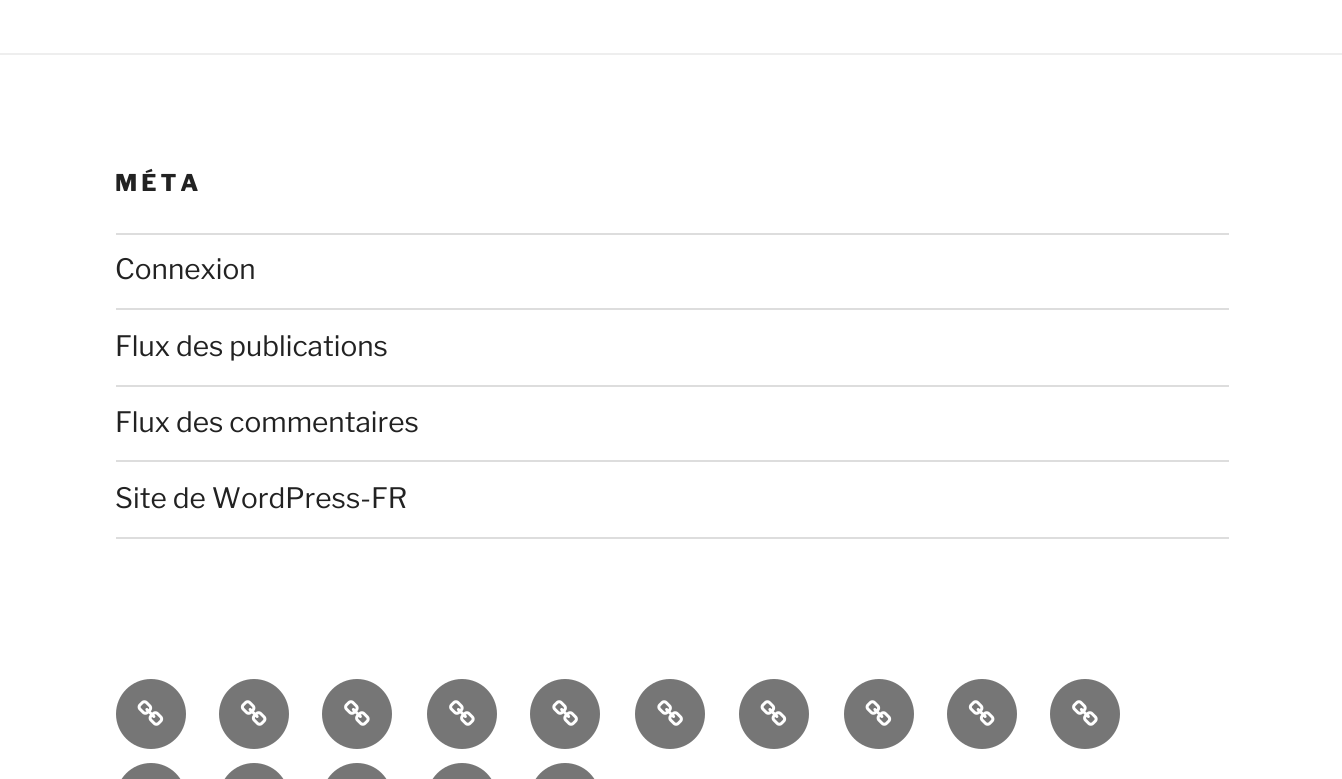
#include <cairo.h>
#include <math.h>
#include <stddef.h>


static void spaced_text(cairo_t *cr, double x, double y, const char *s, double letter, double word) {
    cairo_move_to(cr, x, y);
    while (*s) {
        char ch[5] = {0};
        int n = 0;
        do ch[n++] = *s++; while ((*s & 0xC0) == 0x80);
        cairo_show_text(cr, ch);
        cairo_rel_move_to(cr, letter + word * (*ch == ' '), 0);
    }
}

static void round_rect(cairo_t *cr, double x, double y, double w, double h, double r) {
    cairo_new_sub_path(cr);
    cairo_arc(cr, x + w - r, y + h - r, r, 0, M_PI / 2);
    cairo_arc(cr, x + r, y + h - r, r, M_PI / 2, M_PI);
    cairo_arc(cr, x + r, y + r, r, M_PI, 1.5 * M_PI);
    cairo_arc(cr, x + w - r, y + r, r, 1.5 * M_PI, 2 * M_PI);
    cairo_close_path(cr);
}

static void picture(cairo_t *cr, const char *path, double x, double y, double w, double h) {
    cairo_surface_t *image = cairo_image_surface_create_from_png(path);
    cairo_save(cr);
    cairo_set_source_surface(cr, image, x, y);
    cairo_rectangle(cr, x, y, w, h);
    cairo_fill(cr);
    cairo_restore(cr);
    cairo_surface_destroy(image);
}

int main(void) {
    cairo_surface_t *surface = cairo_image_surface_create(CAIRO_FORMAT_RGB24, 1342, 779);
    cairo_t *cr = cairo_create(surface);
    cairo_font_options_t *options = cairo_font_options_create();
    cairo_font_options_set_hint_metrics(options, CAIRO_HINT_METRICS_OFF);
    cairo_font_options_set_hint_style(options, CAIRO_HINT_STYLE_NONE);
    cairo_set_font_options(cr, options);
    cairo_set_miter_limit(cr, 4);
    cairo_set_source_rgb(cr, 1, 1, 1);
    cairo_paint(cr);
    cairo_set_source_rgb(cr, 0.933, 0.933, 0.933);
    cairo_rectangle(cr, 0, 53, 1342, 2);
    cairo_fill(cr);
    cairo_select_font_face(cr, "Libre Franklin ExtraBold", CAIRO_FONT_SLANT_NORMAL, CAIRO_FONT_WEIGHT_NORMAL);
    cairo_set_font_size(cr, 23);
    cairo_set_source_rgb(cr, 0.133, 0.133, 0.133);
    spaced_text(cr, 115, 191, "MÉTA", 4, 0);
    cairo_set_source_rgb(cr, 0.867, 0.867, 0.867);
    cairo_rectangle(cr, 116, 233, 1113, 2);
    cairo_fill(cr);
    cairo_rectangle(cr, 116, 308, 1113, 2);
    cairo_fill(cr);
    cairo_select_font_face(cr, "Libre Franklin", CAIRO_FONT_SLANT_NORMAL, CAIRO_FONT_WEIGHT_NORMAL);
    cairo_set_font_size(cr, 28);
    cairo_set_source_rgb(cr, 0.133, 0.133, 0.133);
    cairo_move_to(cr, 115, 279);
    cairo_show_text(cr, "Connexion");
    cairo_set_source_rgb(cr, 0.867, 0.867, 0.867);
    cairo_rectangle(cr, 116, 385, 1113, 2);
    cairo_fill(cr);
    cairo_set_source_rgb(cr, 0.133, 0.133, 0.133);
    cairo_move_to(cr, 115, 356);
    cairo_show_text(cr, "Flux des publications");
    cairo_set_source_rgb(cr, 0.867, 0.867, 0.867);
    cairo_rectangle(cr, 116, 460, 1113, 2);
    cairo_fill(cr);
    cairo_set_source_rgb(cr, 0.133, 0.133, 0.133);
    cairo_move_to(cr, 115, 432);
    cairo_show_text(cr, "Flux des commentaires");
    cairo_set_source_rgb(cr, 0.867, 0.867, 0.867);
    cairo_rectangle(cr, 116, 537, 1113, 2);
    cairo_fill(cr);
    cairo_set_source_rgb(cr, 0.133, 0.133, 0.133);
    cairo_move_to(cr, 115, 508);
    cairo_show_text(cr, "Site de WordPress-FR");
    cairo_set_source_rgb(cr, 0.463, 0.463, 0.463);
    cairo_new_path(cr);
    cairo_arc(cr, 151, 714, 35, 0, 2 * M_PI);
    cairo_fill(cr);
    picture(cr, "img1.png", 137, 700, 27, 26);
    cairo_arc(cr, 254, 714, 35, 0, 2 * M_PI);
    cairo_fill(cr);
    picture(cr, "img2.png", 240, 700, 27, 26);
    cairo_arc(cr, 357, 714, 35, 0, 2 * M_PI);
    cairo_fill(cr);
    picture(cr, "img3.png", 344, 700, 26, 26);
    cairo_arc(cr, 462, 714, 35, 0, 2 * M_PI);
    cairo_fill(cr);
    picture(cr, "img3.png", 449, 700, 26, 26);
    cairo_arc(cr, 565, 714, 35, 0, 2 * M_PI);
    cairo_fill(cr);
    picture(cr, "img4.png", 552, 700, 26, 26);
    cairo_arc(cr, 670, 714, 35, 0, 2 * M_PI);
    cairo_fill(cr);
    picture(cr, "img4.png", 657, 700, 26, 26);
    cairo_arc(cr, 774, 714, 35, 0, 2 * M_PI);
    cairo_fill(cr);
    picture(cr, "img1.png", 760, 700, 27, 26);
    cairo_arc(cr, 879, 714, 35, 0, 2 * M_PI);
    cairo_fill(cr);
    picture(cr, "img1.png", 865, 700, 27, 26);
    cairo_arc(cr, 982, 714, 35, 0, 2 * M_PI);
    cairo_fill(cr);
    picture(cr, "img2.png", 968, 700, 27, 26);
    cairo_arc(cr, 1085, 714, 35, 0, 2 * M_PI);
    cairo_fill(cr);
    picture(cr, "img3.png", 1072, 700, 26, 26);
    round_rect(cr, 116, 763, 70, 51, 35);
    cairo_fill(cr);
    round_rect(cr, 219, 763, 70, 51, 35);
    cairo_fill(cr);
    round_rect(cr, 322, 763, 70, 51, 35);
    cairo_fill(cr);
    round_rect(cr, 427, 763, 70, 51, 35);
    cairo_fill(cr);
    round_rect(cr, 530, 763, 70, 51, 35);
    cairo_fill(cr);
    cairo_surface_write_to_png(surface, "page.png");
    cairo_font_options_destroy(options);
    cairo_destroy(cr);
    cairo_surface_destroy(surface);
    return 0;
}
